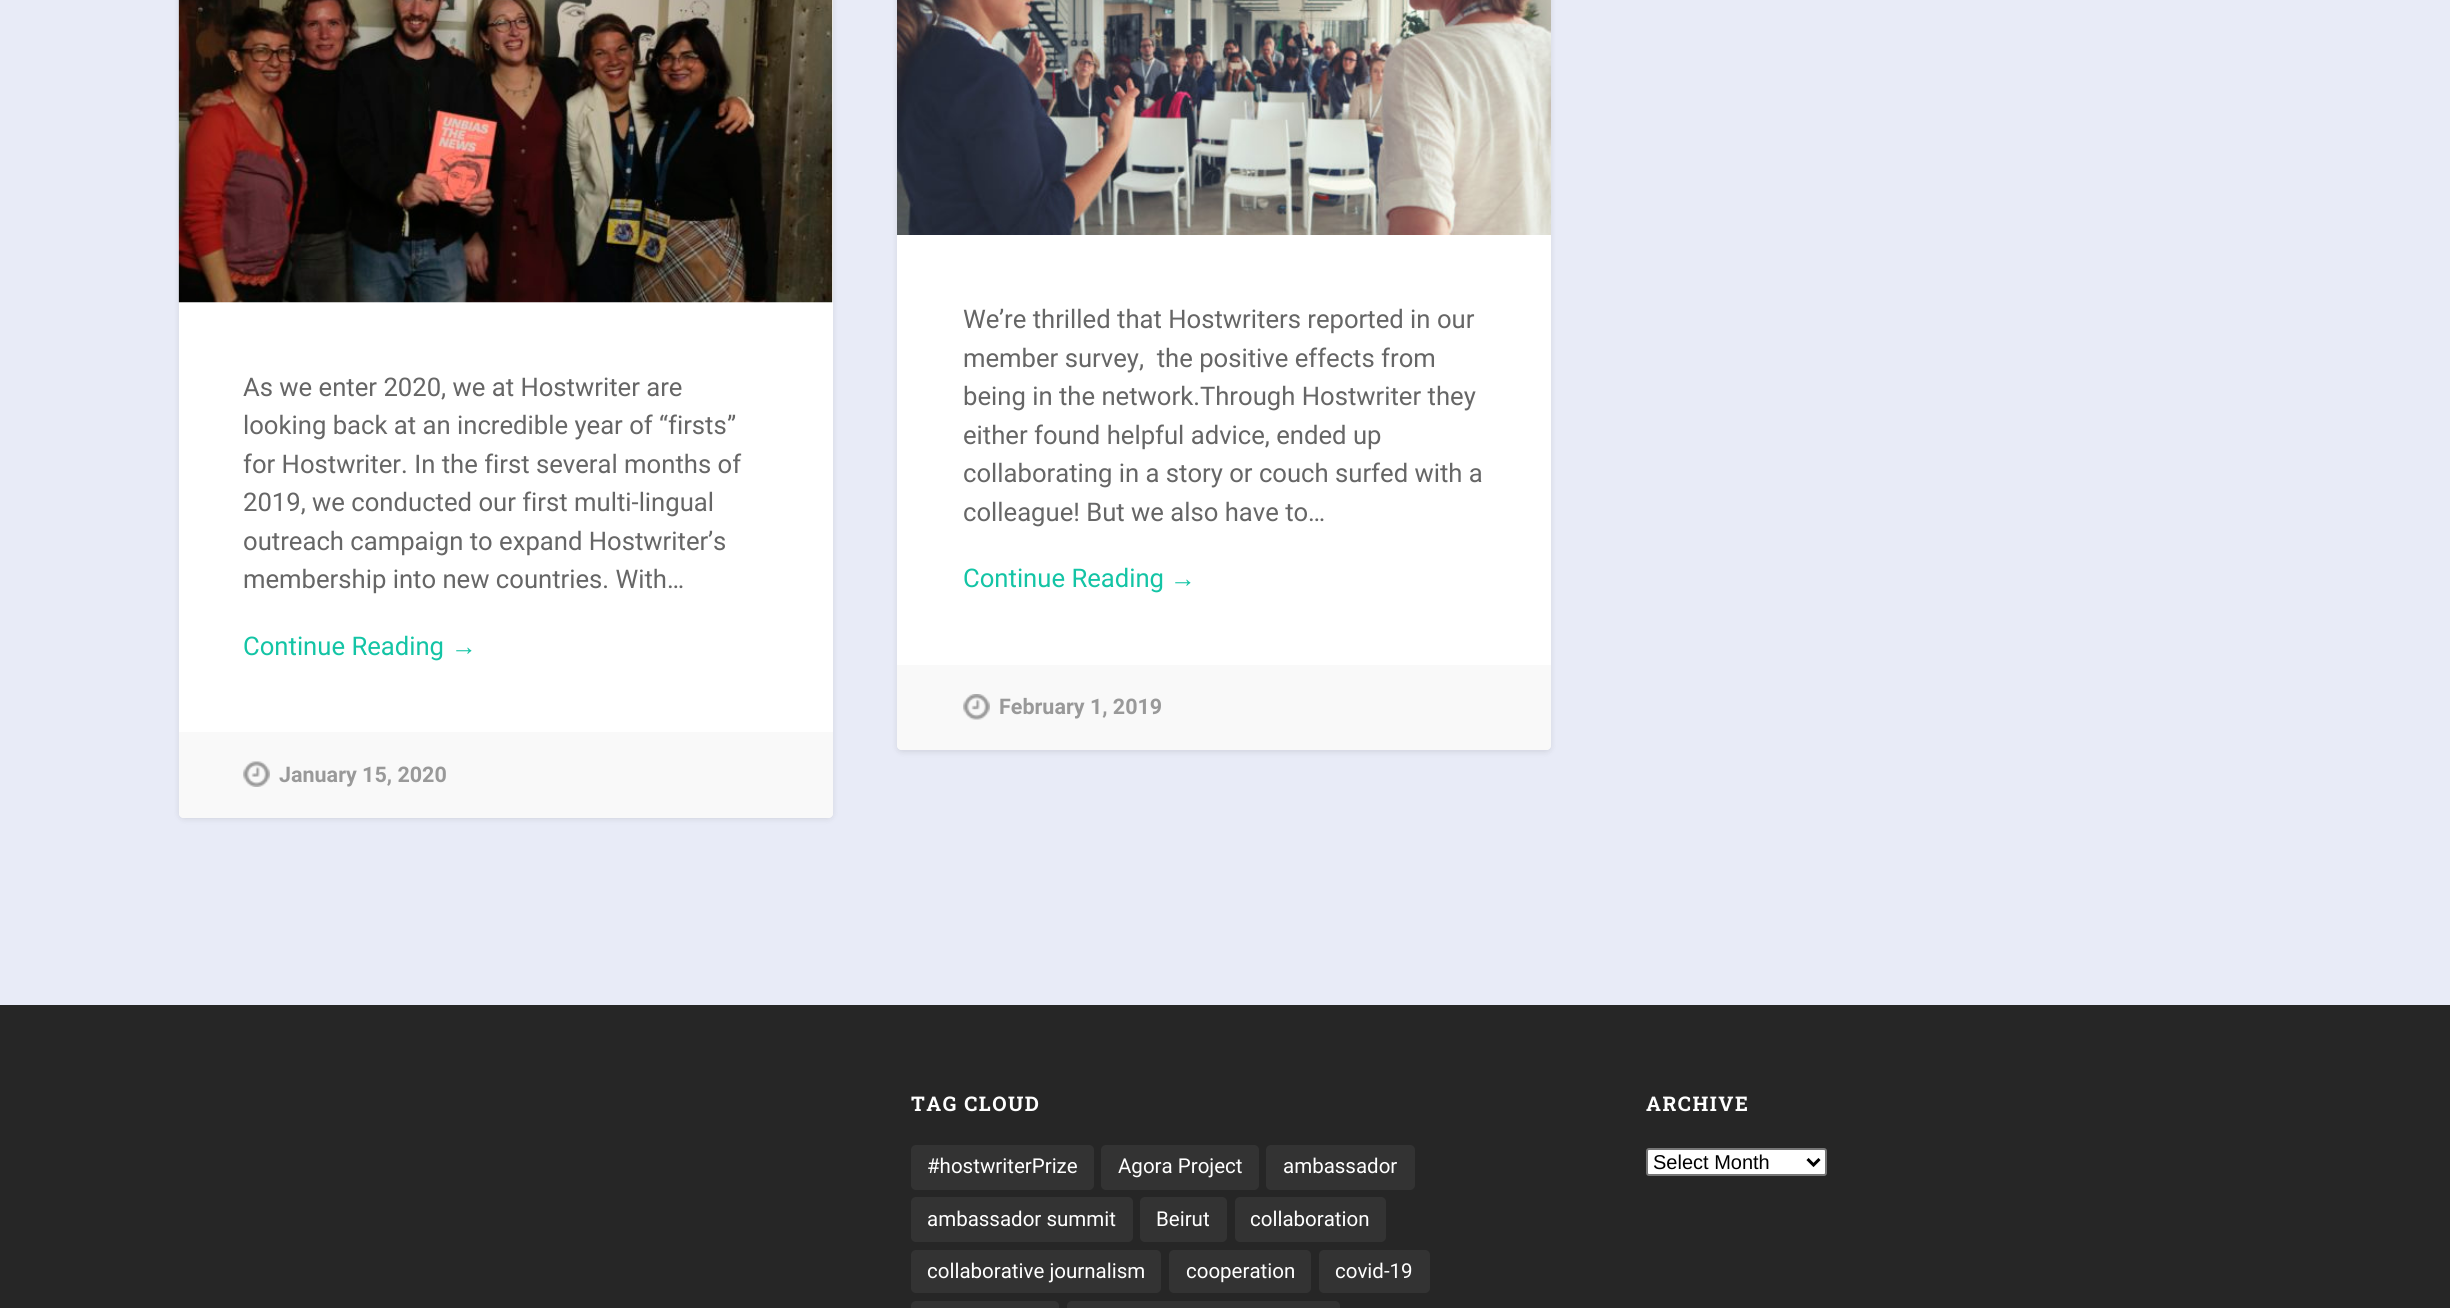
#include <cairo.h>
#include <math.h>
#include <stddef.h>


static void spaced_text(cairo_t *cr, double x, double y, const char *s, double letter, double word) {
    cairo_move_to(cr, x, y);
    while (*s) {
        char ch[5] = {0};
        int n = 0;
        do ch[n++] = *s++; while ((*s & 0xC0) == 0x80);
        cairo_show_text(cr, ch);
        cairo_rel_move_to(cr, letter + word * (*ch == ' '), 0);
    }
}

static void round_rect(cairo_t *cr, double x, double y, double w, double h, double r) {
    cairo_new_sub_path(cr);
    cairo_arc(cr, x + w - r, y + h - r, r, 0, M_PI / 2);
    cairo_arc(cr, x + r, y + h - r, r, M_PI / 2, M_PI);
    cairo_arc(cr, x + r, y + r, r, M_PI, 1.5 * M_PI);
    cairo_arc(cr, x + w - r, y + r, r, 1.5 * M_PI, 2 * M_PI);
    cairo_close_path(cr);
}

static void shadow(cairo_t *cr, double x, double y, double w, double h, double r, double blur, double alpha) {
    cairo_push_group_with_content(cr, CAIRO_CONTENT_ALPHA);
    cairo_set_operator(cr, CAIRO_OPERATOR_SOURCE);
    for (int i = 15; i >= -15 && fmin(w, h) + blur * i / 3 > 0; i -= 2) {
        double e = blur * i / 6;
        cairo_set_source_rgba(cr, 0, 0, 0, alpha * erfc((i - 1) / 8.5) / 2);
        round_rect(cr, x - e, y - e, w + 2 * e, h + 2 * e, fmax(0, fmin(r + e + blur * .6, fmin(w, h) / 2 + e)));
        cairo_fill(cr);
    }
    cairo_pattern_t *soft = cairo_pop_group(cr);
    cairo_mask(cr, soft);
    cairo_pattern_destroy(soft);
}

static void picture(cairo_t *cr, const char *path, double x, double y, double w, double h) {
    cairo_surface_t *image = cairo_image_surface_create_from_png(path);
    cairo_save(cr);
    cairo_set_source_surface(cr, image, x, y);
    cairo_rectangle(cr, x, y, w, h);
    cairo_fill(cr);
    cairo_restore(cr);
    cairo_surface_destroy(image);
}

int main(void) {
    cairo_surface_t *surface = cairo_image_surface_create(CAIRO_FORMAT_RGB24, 2450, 1308);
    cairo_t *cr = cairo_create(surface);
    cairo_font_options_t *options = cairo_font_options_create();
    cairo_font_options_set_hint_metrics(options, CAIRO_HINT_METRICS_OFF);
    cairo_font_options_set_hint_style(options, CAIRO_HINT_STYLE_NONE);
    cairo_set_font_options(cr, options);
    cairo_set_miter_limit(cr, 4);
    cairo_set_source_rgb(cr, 0.91, 0.918, 0.965);
    cairo_paint(cr);
    cairo_set_source_rgb(cr, 0, 0, 0);
    shadow(cr, 179, -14, 654, 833, 5, 3, 0.1);
    cairo_set_source_rgb(cr, 1, 1, 1);
    round_rect(cr, 179, -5, 654, 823, 5);
    cairo_fill(cr);
    picture(cr, "img1.png", 178, 0, 655, 303);
    cairo_select_font_face(cr, "Roboto", CAIRO_FONT_SLANT_NORMAL, CAIRO_FONT_WEIGHT_NORMAL);
    cairo_set_font_size(cr, 25.65);
    cairo_set_source_rgb(cr, 0.4, 0.4, 0.4);
    cairo_move_to(cr, 243, 396);
    cairo_show_text(cr, "As we enter 2020, we at Hostwriter are");
    cairo_move_to(cr, 243, 434);
    cairo_show_text(cr, "looking back at an incredible year of");
    cairo_select_font_face(cr, "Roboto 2", CAIRO_FONT_SLANT_NORMAL, CAIRO_FONT_WEIGHT_NORMAL);
    cairo_move_to(cr, 659, 434);
    cairo_show_text(cr, "“");
    cairo_select_font_face(cr, "Roboto", CAIRO_FONT_SLANT_NORMAL, CAIRO_FONT_WEIGHT_NORMAL);
    cairo_move_to(cr, 668, 434);
    cairo_show_text(cr, "firsts");
    cairo_select_font_face(cr, "Roboto 2", CAIRO_FONT_SLANT_NORMAL, CAIRO_FONT_WEIGHT_NORMAL);
    cairo_move_to(cr, 727, 434);
    cairo_show_text(cr, "”");
    cairo_select_font_face(cr, "Roboto", CAIRO_FONT_SLANT_NORMAL, CAIRO_FONT_WEIGHT_NORMAL);
    cairo_move_to(cr, 243, 473);
    cairo_show_text(cr, "for Hostwriter. In the first several months of");
    cairo_move_to(cr, 243, 511);
    cairo_show_text(cr, "2019, we conducted our first multi-lingual");
    cairo_move_to(cr, 243, 550);
    cairo_show_text(cr, "outreach campaign to expand Hostwriter");
    cairo_select_font_face(cr, "Roboto 2", CAIRO_FONT_SLANT_NORMAL, CAIRO_FONT_WEIGHT_NORMAL);
    cairo_move_to(cr, 708, 550);
    cairo_show_text(cr, "’");
    cairo_select_font_face(cr, "Roboto", CAIRO_FONT_SLANT_NORMAL, CAIRO_FONT_WEIGHT_NORMAL);
    cairo_move_to(cr, 713, 550);
    cairo_show_text(cr, "s");
    cairo_move_to(cr, 243, 588);
    cairo_show_text(cr, "membership into new countries. With");
    cairo_select_font_face(cr, "Roboto 2", CAIRO_FONT_SLANT_NORMAL, CAIRO_FONT_WEIGHT_NORMAL);
    cairo_move_to(cr, 667, 588);
    cairo_show_text(cr, "…");
    cairo_select_font_face(cr, "Roboto", CAIRO_FONT_SLANT_NORMAL, CAIRO_FONT_WEIGHT_NORMAL);
    cairo_set_source_rgb(cr, 0.075, 0.769, 0.647);
    cairo_move_to(cr, 243, 655);
    cairo_show_text(cr, "Continue Reading");
    cairo_select_font_face(cr, "Liberation Sans", CAIRO_FONT_SLANT_NORMAL, CAIRO_FONT_WEIGHT_NORMAL);
    cairo_move_to(cr, 451, 655);
    cairo_show_text(cr, "→");
    cairo_set_source_rgb(cr, 0.976, 0.976, 0.976);
    cairo_new_path(cr);
    cairo_move_to(cr, 179, 732);
    cairo_line_to(cr, 833, 732);
    cairo_line_to(cr, 833, 813);
    cairo_curve_to(cr, 833, 816, 831, 818, 828, 818);
    cairo_line_to(cr, 184, 818);
    cairo_curve_to(cr, 181, 818, 179, 816, 179, 813);
    cairo_close_path(cr);
    cairo_fill(cr);
    picture(cr, "img2.png", 243, 761, 27, 26);
    cairo_select_font_face(cr, "Roboto", CAIRO_FONT_SLANT_NORMAL, CAIRO_FONT_WEIGHT_BOLD);
    cairo_set_font_size(cr, 21.5);
    cairo_set_source_rgb(cr, 0.6, 0.6, 0.6);
    cairo_move_to(cr, 279, 782);
    cairo_show_text(cr, "January 15, 2020");
    cairo_set_source_rgb(cr, 0, 0, 0);
    shadow(cr, 897, -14, 654, 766, 5, 3, 0.1);
    cairo_set_source_rgb(cr, 1, 1, 1);
    round_rect(cr, 897, -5, 654, 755, 5);
    cairo_fill(cr);
    picture(cr, "img3.png", 897, 0, 654, 235);
    cairo_select_font_face(cr, "Roboto", CAIRO_FONT_SLANT_NORMAL, CAIRO_FONT_WEIGHT_NORMAL);
    cairo_set_font_size(cr, 25.65);
    cairo_set_source_rgb(cr, 0.4, 0.4, 0.4);
    cairo_move_to(cr, 963, 328);
    cairo_show_text(cr, "We");
    cairo_select_font_face(cr, "Roboto 2", CAIRO_FONT_SLANT_NORMAL, CAIRO_FONT_WEIGHT_NORMAL);
    cairo_move_to(cr, 999, 328);
    cairo_show_text(cr, "’");
    cairo_select_font_face(cr, "Roboto", CAIRO_FONT_SLANT_NORMAL, CAIRO_FONT_WEIGHT_NORMAL);
    cairo_move_to(cr, 1004, 328);
    cairo_show_text(cr, "re thrilled that Hostwriters reported in our");
    cairo_move_to(cr, 963, 367);
    cairo_show_text(cr, "member survey,  the positive effects from");
    cairo_move_to(cr, 963, 405);
    cairo_show_text(cr, "being in the network.Through Hostwriter they");
    cairo_move_to(cr, 963, 444);
    cairo_show_text(cr, "either found helpful advice, ended up");
    cairo_move_to(cr, 963, 482);
    cairo_show_text(cr, "collaborating in a story or couch surfed with a");
    cairo_move_to(cr, 963, 521);
    cairo_show_text(cr, "colleague! But we also have to");
    cairo_select_font_face(cr, "Roboto 2", CAIRO_FONT_SLANT_NORMAL, CAIRO_FONT_WEIGHT_NORMAL);
    cairo_move_to(cr, 1308, 521);
    cairo_show_text(cr, "…");
    cairo_select_font_face(cr, "Roboto", CAIRO_FONT_SLANT_NORMAL, CAIRO_FONT_WEIGHT_NORMAL);
    cairo_set_source_rgb(cr, 0.075, 0.769, 0.647);
    cairo_move_to(cr, 963, 587);
    cairo_show_text(cr, "Continue Reading");
    cairo_select_font_face(cr, "Liberation Sans", CAIRO_FONT_SLANT_NORMAL, CAIRO_FONT_WEIGHT_NORMAL);
    cairo_move_to(cr, 1170, 587);
    cairo_show_text(cr, "→");
    cairo_set_source_rgb(cr, 0.976, 0.976, 0.976);
    cairo_new_path(cr);
    cairo_move_to(cr, 897, 665);
    cairo_line_to(cr, 1551, 665);
    cairo_line_to(cr, 1551, 745);
    cairo_curve_to(cr, 1551, 748, 1549, 750, 1546, 750);
    cairo_line_to(cr, 902, 750);
    cairo_curve_to(cr, 899, 750, 897, 748, 897, 745);
    cairo_close_path(cr);
    cairo_fill(cr);
    picture(cr, "img4.png", 963, 694, 27, 26);
    cairo_select_font_face(cr, "Roboto", CAIRO_FONT_SLANT_NORMAL, CAIRO_FONT_WEIGHT_BOLD);
    cairo_set_font_size(cr, 21.5);
    cairo_set_source_rgb(cr, 0.6, 0.6, 0.6);
    cairo_move_to(cr, 999, 714);
    cairo_show_text(cr, "February 1, 2019");
    cairo_set_source_rgb(cr, 0.149, 0.149, 0.149);
    cairo_rectangle(cr, 0, 1005, 2450, 303);
    cairo_fill(cr);
    cairo_select_font_face(cr, "Roboto Slab", CAIRO_FONT_SLANT_NORMAL, CAIRO_FONT_WEIGHT_BOLD);
    cairo_set_font_size(cr, 20.25);
    cairo_set_source_rgb(cr, 1, 1, 1);
    spaced_text(cr, 911, 1111, "TAG CLOUD", 1.5, 0);
    cairo_set_source_rgb(cr, 0.2, 0.2, 0.2);
    round_rect(cr, 911, 1145, 183, 45, 5);
    cairo_fill(cr);
    cairo_select_font_face(cr, "Roboto", CAIRO_FONT_SLANT_NORMAL, CAIRO_FONT_WEIGHT_NORMAL);
    cairo_set_font_size(cr, 20.5);
    cairo_set_source_rgb(cr, 1, 1, 1);
    cairo_move_to(cr, 927, 1173);
    cairo_show_text(cr, "#hostwriterPrize");
    cairo_set_source_rgb(cr, 0.2, 0.2, 0.2);
    round_rect(cr, 1101, 1145, 158, 45, 5);
    cairo_fill(cr);
    cairo_set_source_rgb(cr, 1, 1, 1);
    cairo_move_to(cr, 1118, 1173);
    cairo_show_text(cr, "Agora Project");
    cairo_set_source_rgb(cr, 0.2, 0.2, 0.2);
    round_rect(cr, 1266, 1145, 149, 45, 5);
    cairo_fill(cr);
    cairo_set_source_rgb(cr, 1, 1, 1);
    cairo_move_to(cr, 1283, 1173);
    cairo_show_text(cr, "ambassador");
    cairo_set_source_rgb(cr, 0.2, 0.2, 0.2);
    round_rect(cr, 911, 1197, 222, 45, 5);
    cairo_fill(cr);
    cairo_set_source_rgb(cr, 1, 1, 1);
    cairo_move_to(cr, 927, 1226);
    cairo_show_text(cr, "ambassador summit");
    cairo_set_source_rgb(cr, 0.2, 0.2, 0.2);
    round_rect(cr, 1140, 1197, 87, 45, 5);
    cairo_fill(cr);
    cairo_set_source_rgb(cr, 1, 1, 1);
    cairo_move_to(cr, 1156, 1226);
    cairo_show_text(cr, "Beirut");
    cairo_set_source_rgb(cr, 0.2, 0.2, 0.2);
    round_rect(cr, 1235, 1197, 151, 45, 5);
    cairo_fill(cr);
    cairo_set_source_rgb(cr, 1, 1, 1);
    cairo_move_to(cr, 1250, 1226);
    cairo_show_text(cr, "collaboration");
    cairo_set_source_rgb(cr, 0.2, 0.2, 0.2);
    round_rect(cr, 911, 1250, 250, 43, 5);
    cairo_fill(cr);
    cairo_set_source_rgb(cr, 1, 1, 1);
    cairo_move_to(cr, 927, 1278);
    cairo_show_text(cr, "collaborative journalism");
    cairo_set_source_rgb(cr, 0.2, 0.2, 0.2);
    round_rect(cr, 1169, 1250, 142, 43, 5);
    cairo_fill(cr);
    cairo_set_source_rgb(cr, 1, 1, 1);
    cairo_move_to(cr, 1186, 1278);
    cairo_show_text(cr, "cooperation");
    cairo_set_source_rgb(cr, 0.2, 0.2, 0.2);
    round_rect(cr, 1319, 1250, 111, 43, 5);
    cairo_fill(cr);
    cairo_set_source_rgb(cr, 1, 1, 1);
    cairo_move_to(cr, 1335, 1278);
    cairo_show_text(cr, "covid-19");
    cairo_set_source_rgb(cr, 0.2, 0.2, 0.2);
    round_rect(cr, 911, 1301, 148, 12, 5);
    cairo_fill(cr);
    round_rect(cr, 1067, 1301, 273, 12, 5);
    cairo_fill(cr);
    cairo_select_font_face(cr, "Roboto Slab", CAIRO_FONT_SLANT_NORMAL, CAIRO_FONT_WEIGHT_BOLD);
    cairo_set_font_size(cr, 20.25);
    cairo_set_source_rgb(cr, 1, 1, 1);
    spaced_text(cr, 1646, 1111, "ARCHIVE", 1.5, 0);
    round_rect(cr, 1647, 1149, 179, 26, 2);
    cairo_fill_preserve(cr);
    cairo_set_source_rgb(cr, 0.463, 0.463, 0.463);
    cairo_stroke(cr);
    cairo_new_path(cr);
    cairo_move_to(cr, 1807.5, 1159);
    cairo_line_to(cr, 1813.5, 1165);
    cairo_line_to(cr, 1819.5, 1159);
    cairo_set_source_rgb(cr, 0, 0, 0);
    cairo_set_line_width(cr, 3);
    cairo_stroke(cr);
    cairo_select_font_face(cr, "Liberation Sans", CAIRO_FONT_SLANT_NORMAL, CAIRO_FONT_WEIGHT_NORMAL);
    cairo_set_font_size(cr, 20);
    cairo_move_to(cr, 1653, 1169);
    cairo_show_text(cr, "Select Month");
    cairo_surface_write_to_png(surface, "page.png");
    cairo_font_options_destroy(options);
    cairo_destroy(cr);
    cairo_surface_destroy(surface);
    return 0;
}
